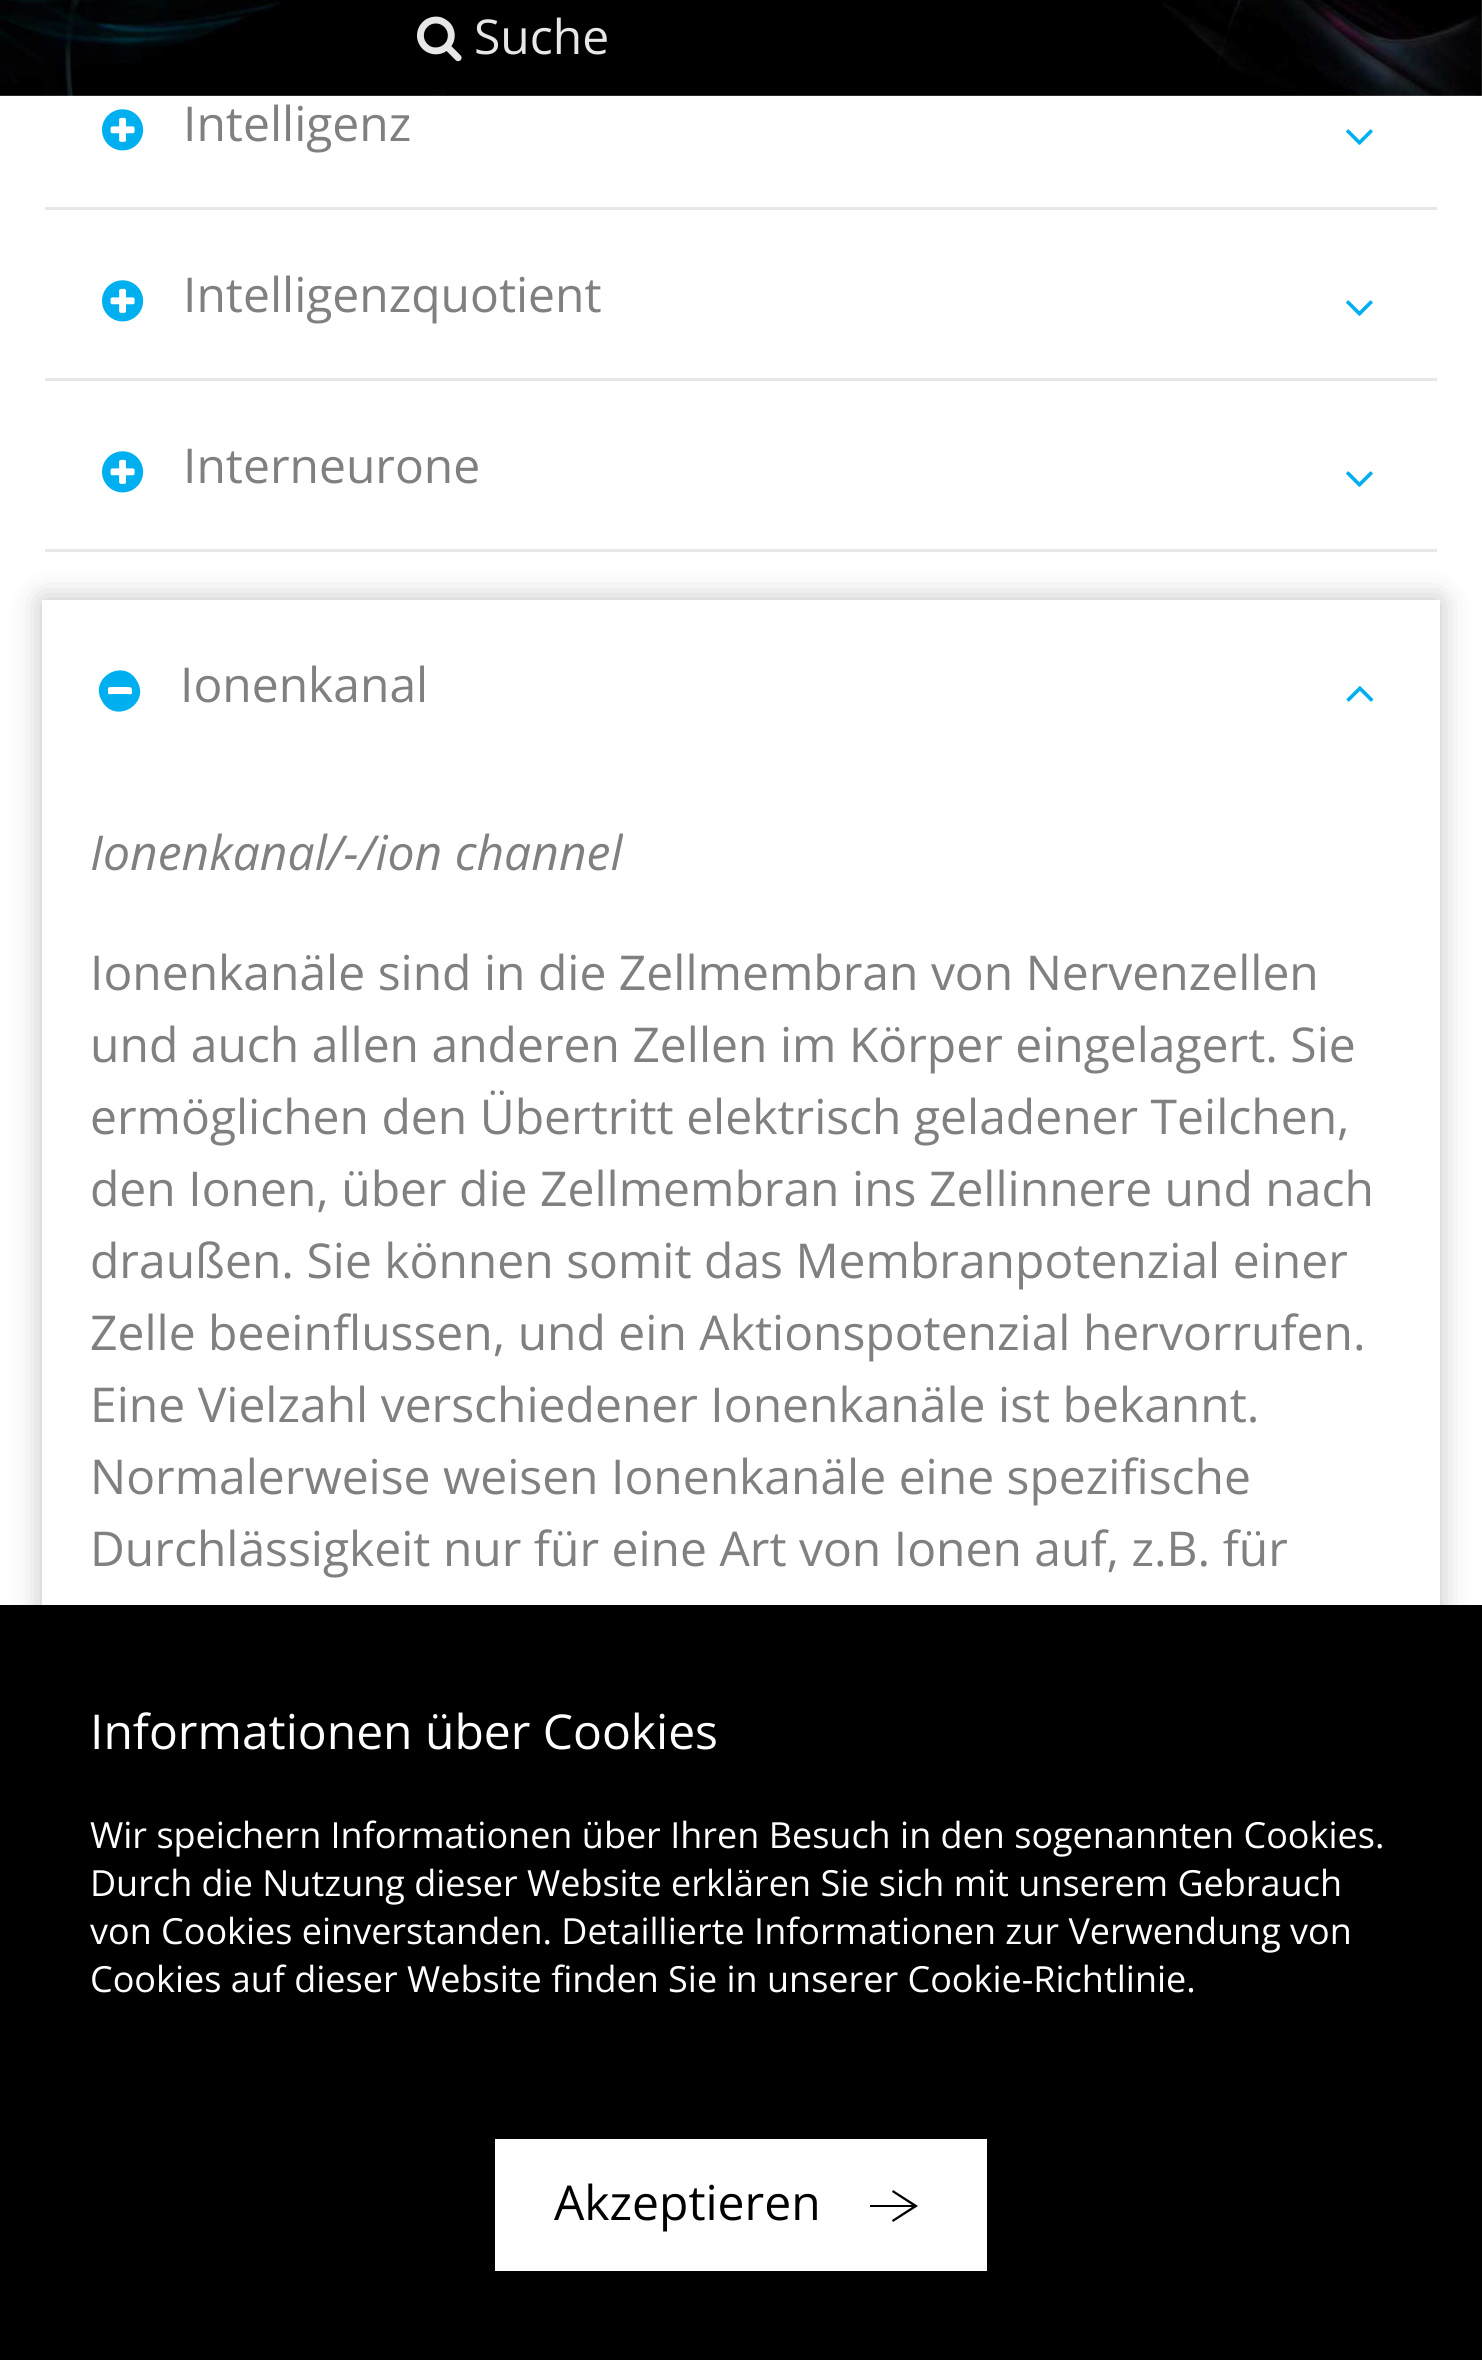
#include <cairo.h>
#include <math.h>
#include <stddef.h>


static void round_rect(cairo_t *cr, double x, double y, double w, double h, double r) {
    cairo_new_sub_path(cr);
    cairo_arc(cr, x + w - r, y + h - r, r, 0, M_PI / 2);
    cairo_arc(cr, x + r, y + h - r, r, M_PI / 2, M_PI);
    cairo_arc(cr, x + r, y + r, r, M_PI, 1.5 * M_PI);
    cairo_arc(cr, x + w - r, y + r, r, 1.5 * M_PI, 2 * M_PI);
    cairo_close_path(cr);
}

static void shadow(cairo_t *cr, double x, double y, double w, double h, double r, double blur, double alpha) {
    cairo_push_group_with_content(cr, CAIRO_CONTENT_ALPHA);
    cairo_set_operator(cr, CAIRO_OPERATOR_SOURCE);
    for (int i = 15; i >= -15 && fmin(w, h) + blur * i / 3 > 0; i -= 2) {
        double e = blur * i / 6;
        cairo_set_source_rgba(cr, 0, 0, 0, alpha * erfc((i - 1) / 8.5) / 2);
        round_rect(cr, x - e, y - e, w + 2 * e, h + 2 * e, fmax(0, fmin(r + e + blur * .6, fmin(w, h) / 2 + e)));
        cairo_fill(cr);
    }
    cairo_pattern_t *soft = cairo_pop_group(cr);
    cairo_mask(cr, soft);
    cairo_pattern_destroy(soft);
}

static void picture(cairo_t *cr, const char *path, double x, double y, double w, double h) {
    cairo_surface_t *image = cairo_image_surface_create_from_png(path);
    cairo_save(cr);
    cairo_set_source_surface(cr, image, x, y);
    cairo_rectangle(cr, x, y, w, h);
    cairo_fill(cr);
    cairo_restore(cr);
    cairo_surface_destroy(image);
}

int main(void) {
    cairo_surface_t *surface = cairo_image_surface_create(CAIRO_FORMAT_RGB24, 1482, 2360);
    cairo_t *cr = cairo_create(surface);
    cairo_font_options_t *options = cairo_font_options_create();
    cairo_font_options_set_hint_metrics(options, CAIRO_HINT_METRICS_OFF);
    cairo_font_options_set_hint_style(options, CAIRO_HINT_STYLE_NONE);
    cairo_set_font_options(cr, options);
    cairo_set_miter_limit(cr, 4);
    cairo_set_source_rgb(cr, 1, 1, 1);
    cairo_paint(cr);
    picture(cr, "img1.png", 0, 0, 1482, 96);
    picture(cr, "img2.png", 417, 16, 45, 46);
    cairo_select_font_face(cr, "Open Sans", CAIRO_FONT_SLANT_NORMAL, CAIRO_FONT_WEIGHT_NORMAL);
    cairo_set_font_size(cr, 48);
    cairo_set_source_rgb(cr, 0.906, 0.906, 0.906);
    cairo_move_to(cr, 474, 54);
    cairo_show_text(cr, "Suche");
    cairo_rectangle(cr, 45, 207, 1392, 3);
    cairo_fill(cr);
    picture(cr, "img3.png", 102, 109, 42, 42);
    cairo_set_source_rgb(cr, 0.502, 0.502, 0.502);
    cairo_move_to(cr, 183, 141);
    cairo_show_text(cr, "Intelligenz");
    picture(cr, "img4.png", 1346, 129, 27, 16);
    cairo_set_source_rgb(cr, 0.906, 0.906, 0.906);
    cairo_rectangle(cr, 45, 378, 1392, 3);
    cairo_fill(cr);
    picture(cr, "img3.png", 102, 280, 42, 42);
    cairo_set_source_rgb(cr, 0.502, 0.502, 0.502);
    cairo_move_to(cr, 183, 312);
    cairo_show_text(cr, "Intelligenzquotient");
    picture(cr, "img4.png", 1346, 300, 27, 16);
    cairo_set_source_rgb(cr, 0.906, 0.906, 0.906);
    cairo_rectangle(cr, 45, 549, 1392, 3);
    cairo_fill(cr);
    picture(cr, "img3.png", 102, 451, 42, 42);
    cairo_set_source_rgb(cr, 0.502, 0.502, 0.502);
    cairo_move_to(cr, 183, 483);
    cairo_show_text(cr, "Interneurone");
    picture(cr, "img4.png", 1346, 471, 27, 16);
    cairo_set_source_rgb(cr, 0, 0.686, 0.941);
    cairo_new_path(cr);
    cairo_move_to(cr, 132, 693);
    cairo_curve_to(cr, 132, 687, 132, 687, 126, 687);
    cairo_line_to(cr, 113, 687);
    cairo_curve_to(cr, 107, 687, 108, 687, 108, 693);
    cairo_curve_to(cr, 108, 695, 112, 694, 113, 694);
    cairo_line_to(cr, 126, 694);
    cairo_curve_to(cr, 128, 694, 132, 695, 132, 693);
    cairo_close_path(cr);
    cairo_move_to(cr, 137, 681);
    cairo_curve_to(cr, 151, 704, 115, 725, 102, 701);
    cairo_curve_to(cr, 88, 678, 124, 657, 137, 681);
    cairo_close_path(cr);
    cairo_fill(cr);
    picture(cr, "img5.png", 1346, 686, 28, 16);
    cairo_save(cr);
    cairo_set_fill_rule(cr, CAIRO_FILL_RULE_EVEN_ODD);
    cairo_new_path(cr);
    cairo_move_to(cr, 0, 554);
    cairo_line_to(cr, 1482, 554);
    cairo_line_to(cr, 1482, 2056);
    cairo_line_to(cr, 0, 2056);
    cairo_close_path(cr);
    cairo_move_to(cr, 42, 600);
    cairo_line_to(cr, 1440, 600);
    cairo_line_to(cr, 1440, 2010);
    cairo_line_to(cr, 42, 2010);
    cairo_close_path(cr);
    cairo_clip(cr);
    cairo_set_source_rgb(cr, 0, 0, 0);
    shadow(cr, 42, 600, 1398, 1410, 0, 15, 0.25);
    cairo_restore(cr);
    cairo_set_source_rgb(cr, 0.502, 0.502, 0.502);
    cairo_move_to(cr, 180, 702);
    cairo_show_text(cr, "Ionenkanal");
    cairo_select_font_face(cr, "Open Sans", CAIRO_FONT_SLANT_ITALIC, CAIRO_FONT_WEIGHT_NORMAL);
    cairo_move_to(cr, 90, 870);
    cairo_show_text(cr, "Ionenkanal/-/ion channel");
    cairo_select_font_face(cr, "Open Sans", CAIRO_FONT_SLANT_NORMAL, CAIRO_FONT_WEIGHT_NORMAL);
    cairo_move_to(cr, 90, 990);
    cairo_show_text(cr, "Ionenkanäle sind in die Zellmembran von Nervenzellen");
    cairo_move_to(cr, 90, 1062);
    cairo_show_text(cr, "und auch allen anderen Zellen im Körper eingelagert. Sie");
    cairo_move_to(cr, 90, 1134);
    cairo_show_text(cr, "ermöglichen den Übertritt elektrisch geladener Teilchen,");
    cairo_move_to(cr, 90, 1206);
    cairo_show_text(cr, "den Ionen, über die Zellmembran ins Zellinnere und nach");
    cairo_move_to(cr, 90, 1278);
    cairo_show_text(cr, "draußen. Sie können somit das Membranpotenzial einer");
    cairo_move_to(cr, 90, 1350);
    cairo_show_text(cr, "Zelle beeinflussen, und ein Aktionspotenzial hervorrufen.");
    cairo_move_to(cr, 90, 1422);
    cairo_show_text(cr, "Eine Vielzahl verschiedener Ionenkanäle ist bekannt.");
    cairo_move_to(cr, 90, 1494);
    cairo_show_text(cr, "Normalerweise weisen Ionenkanäle eine spezifische");
    cairo_move_to(cr, 90, 1566);
    cairo_show_text(cr, "Durchlässigkeit nur für eine Art von Ionen auf, z.B. für");
    cairo_set_source_rgb(cr, 0, 0, 0);
    cairo_rectangle(cr, 0, 1605, 1482, 755);
    cairo_fill(cr);
    cairo_set_source_rgb(cr, 1, 1, 1);
    cairo_move_to(cr, 90, 1749);
    cairo_show_text(cr, "Informationen über Cookies");
    cairo_set_font_size(cr, 36);
    cairo_move_to(cr, 90, 1848);
    cairo_show_text(cr, "Wir speichern Informationen über Ihren Besuch in den sogenannten Cookies.");
    cairo_move_to(cr, 90, 1896);
    cairo_show_text(cr, "Durch die Nutzung dieser Website erklären Sie sich mit unserem Gebrauch");
    cairo_move_to(cr, 90, 1944);
    cairo_show_text(cr, "von Cookies einverstanden. Detaillierte Informationen zur Verwendung von");
    cairo_move_to(cr, 90, 1992);
    cairo_show_text(cr, "Cookies auf dieser Website finden Sie in unserer Cookie-Richtlinie.");
    cairo_rectangle(cr, 495, 2139, 492, 132);
    cairo_fill(cr);
    cairo_set_font_size(cr, 48);
    cairo_set_source_rgb(cr, 0, 0, 0);
    cairo_move_to(cr, 554, 2220);
    cairo_show_text(cr, "Akzeptieren");
    cairo_new_path(cr);
    cairo_move_to(cr, 912, 2205);
    cairo_line_to(cr, 892, 2192);
    cairo_line_to(cr, 893, 2190);
    cairo_line_to(cr, 918, 2206);
    cairo_line_to(cr, 893, 2222);
    cairo_line_to(cr, 892, 2220);
    cairo_line_to(cr, 912, 2207);
    cairo_line_to(cr, 870, 2207);
    cairo_line_to(cr, 870, 2205);
    cairo_close_path(cr);
    cairo_fill(cr);
    cairo_surface_write_to_png(surface, "page.png");
    cairo_font_options_destroy(options);
    cairo_destroy(cr);
    cairo_surface_destroy(surface);
    return 0;
}
